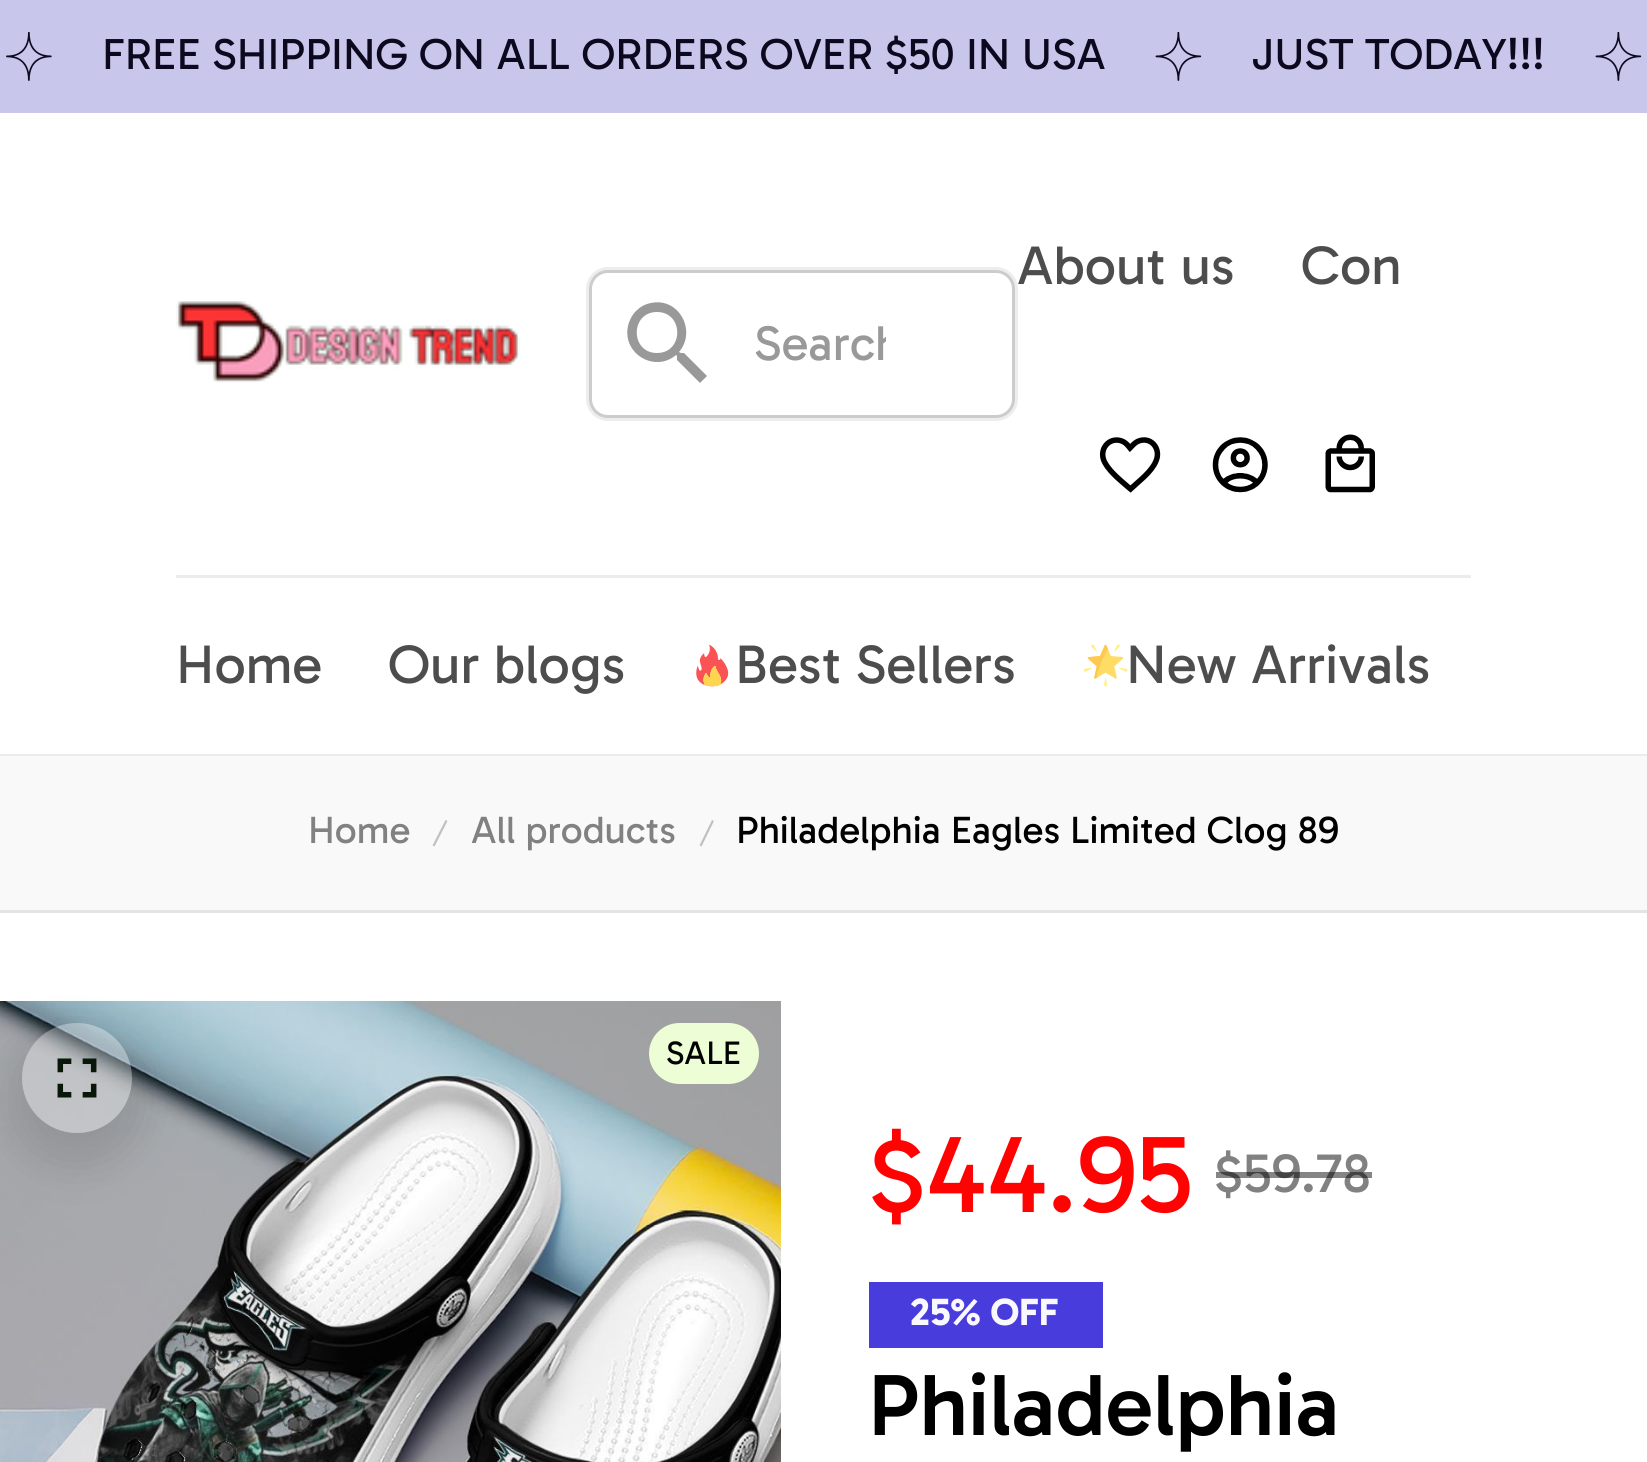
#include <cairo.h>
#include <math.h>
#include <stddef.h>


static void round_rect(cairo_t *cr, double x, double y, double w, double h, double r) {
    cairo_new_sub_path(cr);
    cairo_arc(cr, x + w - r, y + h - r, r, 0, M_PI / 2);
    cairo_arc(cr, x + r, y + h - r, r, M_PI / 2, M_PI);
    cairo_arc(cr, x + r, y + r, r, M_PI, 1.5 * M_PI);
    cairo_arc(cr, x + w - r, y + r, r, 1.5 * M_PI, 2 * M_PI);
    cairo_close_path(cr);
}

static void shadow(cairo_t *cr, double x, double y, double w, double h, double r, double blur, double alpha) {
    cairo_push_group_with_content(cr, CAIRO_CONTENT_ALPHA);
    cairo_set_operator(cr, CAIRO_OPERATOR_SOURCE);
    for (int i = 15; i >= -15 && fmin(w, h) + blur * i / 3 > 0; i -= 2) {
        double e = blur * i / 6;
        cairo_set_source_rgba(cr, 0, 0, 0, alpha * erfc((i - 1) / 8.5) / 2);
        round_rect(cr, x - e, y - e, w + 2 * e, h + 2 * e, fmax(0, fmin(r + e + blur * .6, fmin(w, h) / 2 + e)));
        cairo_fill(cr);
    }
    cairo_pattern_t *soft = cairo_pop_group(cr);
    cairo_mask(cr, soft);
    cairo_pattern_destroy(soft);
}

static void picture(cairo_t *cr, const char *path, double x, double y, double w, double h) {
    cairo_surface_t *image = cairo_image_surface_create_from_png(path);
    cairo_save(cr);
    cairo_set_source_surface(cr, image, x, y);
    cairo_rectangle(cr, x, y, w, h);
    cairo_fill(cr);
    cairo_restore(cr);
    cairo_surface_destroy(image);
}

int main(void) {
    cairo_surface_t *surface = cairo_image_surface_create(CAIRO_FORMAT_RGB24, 1647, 1462);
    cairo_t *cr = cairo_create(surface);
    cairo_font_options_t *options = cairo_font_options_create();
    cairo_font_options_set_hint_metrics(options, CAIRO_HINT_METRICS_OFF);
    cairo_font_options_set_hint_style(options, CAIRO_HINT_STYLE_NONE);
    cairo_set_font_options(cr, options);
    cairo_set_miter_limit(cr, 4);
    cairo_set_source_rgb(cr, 1, 1, 1);
    cairo_paint(cr);
    cairo_set_source_rgb(cr, 0.788, 0.776, 0.925);
    cairo_rectangle(cr, 0, 0, 1647, 113);
    cairo_fill(cr);
    picture(cr, "img1.png", 6, 31, 46, 50);
    cairo_select_font_face(cr, "Gabarito", CAIRO_FONT_SLANT_NORMAL, CAIRO_FONT_WEIGHT_NORMAL);
    cairo_set_font_size(cr, 44);
    cairo_set_source_rgb(cr, 0.047, 0.039, 0.122);
    cairo_move_to(cr, 102, 69);
    cairo_show_text(cr, "FREE SHIPPING ON ALL ORDERS OVER $50 IN USA");
    picture(cr, "img2.png", 1155, 31, 47, 50);
    cairo_move_to(cr, 1251, 69);
    cairo_show_text(cr, "JUST TODAY!!!");
    picture(cr, "img2.png", 1595, 31, 47, 50);
    cairo_set_source_rgb(cr, 0.922, 0.922, 0.922);
    cairo_rectangle(cr, 0, 754, 1647, 2);
    cairo_fill(cr);
    cairo_rectangle(cr, 176, 575, 1295, 3);
    cairo_fill(cr);
    cairo_set_font_size(cr, 55);
    cairo_set_source_rgb(cr, 0.302, 0.302, 0.302);
    cairo_move_to(cr, 1017, 284);
    cairo_show_text(cr, "About us");
    cairo_move_to(cr, 1301, 284);
    cairo_show_text(cr, "Con");
    cairo_new_path(cr);
    cairo_move_to(cr, 1127.5, 486.5);
    cairo_curve_to(cr, 1119.5, 479.5, 1107, 469.5, 1103.5, 459.5);
    cairo_curve_to(cr, 1099.5, 447, 1111, 436, 1123, 441.5);
    cairo_curve_to(cr, 1126, 443, 1128, 445.5, 1130, 448);
    cairo_curve_to(cr, 1132.5, 445.5, 1134.5, 443, 1137.5, 441.5);
    cairo_curve_to(cr, 1150.5, 435.5, 1161.5, 448.5, 1156, 461);
    cairo_curve_to(cr, 1151.5, 472, 1139, 481, 1130.5, 489);
    cairo_close_path(cr);
    cairo_set_source_rgb(cr, 0, 0, 0);
    cairo_set_line_width(cr, 5.5);
    cairo_stroke(cr);
    picture(cr, "img3.png", 1212, 437, 56, 56);
    picture(cr, "img4.png", 1325, 434, 50, 59);
    picture(cr, "img5.png", 176, 301, 344, 82);
    round_rect(cr, 587.5, 268.5, 429, 151, 20.5);
    cairo_set_source_rgb(cr, 0.929, 0.929, 0.929);
    cairo_set_line_width(cr, 3);
    cairo_stroke(cr);
    round_rect(cr, 590.5, 271.5, 423, 145, 17.5);
    cairo_set_source_rgba(cr, 0, 0, 0, 0.2);
    cairo_stroke(cr);
    cairo_set_source_rgb(cr, 0.6, 0.6, 0.6);
    cairo_new_path(cr);
    cairo_move_to(cr, 684, 353);
    cairo_line_to(cr, 681, 353);
    cairo_line_to(cr, 679, 352);
    cairo_curve_to(cr, 697, 331, 679, 297, 651, 303);
    cairo_curve_to(cr, 645, 304, 640, 307, 636, 311);
    cairo_curve_to(cr, 632, 315, 629, 321, 628, 326);
    cairo_curve_to(cr, 622, 354, 655, 373, 676, 355);
    cairo_line_to(cr, 677, 356);
    cairo_line_to(cr, 677, 360);
    cairo_line_to(cr, 700, 383);
    cairo_line_to(cr, 707, 376);
    cairo_close_path(cr);
    cairo_move_to(cr, 657, 353);
    cairo_curve_to(cr, 630, 353, 630, 312, 657, 312);
    cairo_curve_to(cr, 684, 312, 684, 353, 657, 353);
    cairo_close_path(cr);
    cairo_fill(cr);
    cairo_save(cr);
    cairo_rectangle(cr, 754, 314, 132, 60);
    cairo_clip(cr);
    cairo_set_font_size(cr, 49.5);
    cairo_move_to(cr, 754, 360);
    cairo_show_text(cr, "Search");
    cairo_restore(cr);
    cairo_set_source_rgb(cr, 0.302, 0.302, 0.302);
    cairo_move_to(cr, 176, 683);
    cairo_show_text(cr, "Home");
    cairo_move_to(cr, 388, 683);
    cairo_show_text(cr, "Our blogs");
    picture(cr, "img6.png", 696, 644, 33, 43);
    cairo_move_to(cr, 735, 683);
    cairo_show_text(cr, "Best Sellers");
    picture(cr, "img7.png", 1084, 644, 44, 43);
    cairo_move_to(cr, 1126, 683);
    cairo_show_text(cr, "New Arrivals");
    cairo_set_source_rgb(cr, 0.973, 0.973, 0.973);
    cairo_rectangle(cr, 0, 756, 1647, 154);
    cairo_fill(cr);
    cairo_set_source_rgb(cr, 0.894, 0.894, 0.894);
    cairo_rectangle(cr, 0, 910, 1647, 3);
    cairo_fill(cr);
    cairo_set_font_size(cr, 38.5);
    cairo_set_source_rgb(cr, 0.506, 0.506, 0.506);
    cairo_move_to(cr, 308, 843);
    cairo_show_text(cr, "Home");
    cairo_set_source_rgb(cr, 0.745, 0.761, 0.745);
    cairo_new_path(cr);
    cairo_move_to(cr, 434.5, 846.5);
    cairo_line_to(cr, 432.5, 845.5);
    cairo_line_to(cr, 445.5, 820);
    cairo_line_to(cr, 447.5, 821);
    cairo_close_path(cr);
    cairo_fill(cr);
    cairo_set_source_rgb(cr, 0.506, 0.506, 0.506);
    cairo_move_to(cr, 471, 843);
    cairo_show_text(cr, "All products");
    cairo_set_source_rgb(cr, 0.745, 0.761, 0.745);
    cairo_new_path(cr);
    cairo_move_to(cr, 701.5, 846.5);
    cairo_line_to(cr, 699.5, 845.5);
    cairo_line_to(cr, 712, 820);
    cairo_line_to(cr, 714, 821);
    cairo_close_path(cr);
    cairo_fill(cr);
    cairo_set_source_rgb(cr, 0, 0, 0);
    cairo_move_to(cr, 736, 843);
    cairo_show_text(cr, "Philadelphia Eagles Limited Clog 89");
    picture(cr, "img9.png", 0, 1001, 781, 461);
    cairo_save(cr);
    cairo_set_fill_rule(cr, CAIRO_FILL_RULE_EVEN_ODD);
    cairo_new_path(cr);
    cairo_move_to(cr, 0, 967);
    cairo_line_to(cr, 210, 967);
    cairo_line_to(cr, 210, 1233);
    cairo_line_to(cr, 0, 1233);
    cairo_close_path(cr);
    cairo_move_to(cr, 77, 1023);
    cairo_curve_to(cr, 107.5, 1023, 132, 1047.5, 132, 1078);
    cairo_curve_to(cr, 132, 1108.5, 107.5, 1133, 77, 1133);
    cairo_curve_to(cr, 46.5, 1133, 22, 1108.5, 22, 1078);
    cairo_curve_to(cr, 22, 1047.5, 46.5, 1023, 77, 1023);
    cairo_close_path(cr);
    cairo_clip(cr);
    cairo_set_source_rgb(cr, 0, 0, 0);
    shadow(cr, 11, 1034, 132, 132, 66, 22, 0.12);
    cairo_restore(cr);
    cairo_set_source_rgba(cr, 1, 1, 1, 0.32);
    cairo_arc(cr, 77, 1078, 55, 0, 2 * M_PI);
    cairo_fill(cr);
    picture(cr, "img8.png", 57, 1058, 40, 40);
    cairo_set_source_rgb(cr, 0.929, 0.992, 0.835);
    round_rect(cr, 649, 1023, 110, 61, 30.5);
    cairo_fill(cr);
    cairo_set_font_size(cr, 33);
    cairo_set_source_rgb(cr, 0, 0, 0);
    cairo_move_to(cr, 666, 1064);
    cairo_show_text(cr, "SALE");
    cairo_set_font_size(cr, 110);
    cairo_set_source_rgb(cr, 1, 0.008, 0.008);
    cairo_move_to(cr, 868, 1212);
    cairo_show_text(cr, "$44.95");
    cairo_set_font_size(cr, 55);
    cairo_set_source_rgb(cr, 0.506, 0.506, 0.506);
    cairo_move_to(cr, 1214, 1192);
    cairo_show_text(cr, "$59.78");
    cairo_set_source_rgba(cr, 0, 0, 0, 0.48);
    cairo_rectangle(cr, 1216, 1172, 156, 6);
    cairo_fill(cr);
    cairo_set_source_rgb(cr, 0.286, 0.235, 0.867);
    cairo_rectangle(cr, 869, 1282, 234, 66);
    cairo_fill(cr);
    cairo_select_font_face(cr, "Gabarito", CAIRO_FONT_SLANT_NORMAL, CAIRO_FONT_WEIGHT_BOLD);
    cairo_set_font_size(cr, 38.5);
    cairo_set_source_rgb(cr, 0.973, 0.969, 0.988);
    cairo_move_to(cr, 910, 1325);
    cairo_show_text(cr, "25% OFF");
    cairo_select_font_face(cr, "Gabarito Medium", CAIRO_FONT_SLANT_NORMAL, CAIRO_FONT_WEIGHT_NORMAL);
    cairo_set_font_size(cr, 88);
    cairo_set_source_rgb(cr, 0, 0, 0);
    cairo_move_to(cr, 868, 1435);
    cairo_show_text(cr, "Philadelphia");
    cairo_surface_write_to_png(surface, "page.png");
    cairo_font_options_destroy(options);
    cairo_destroy(cr);
    cairo_surface_destroy(surface);
    return 0;
}
